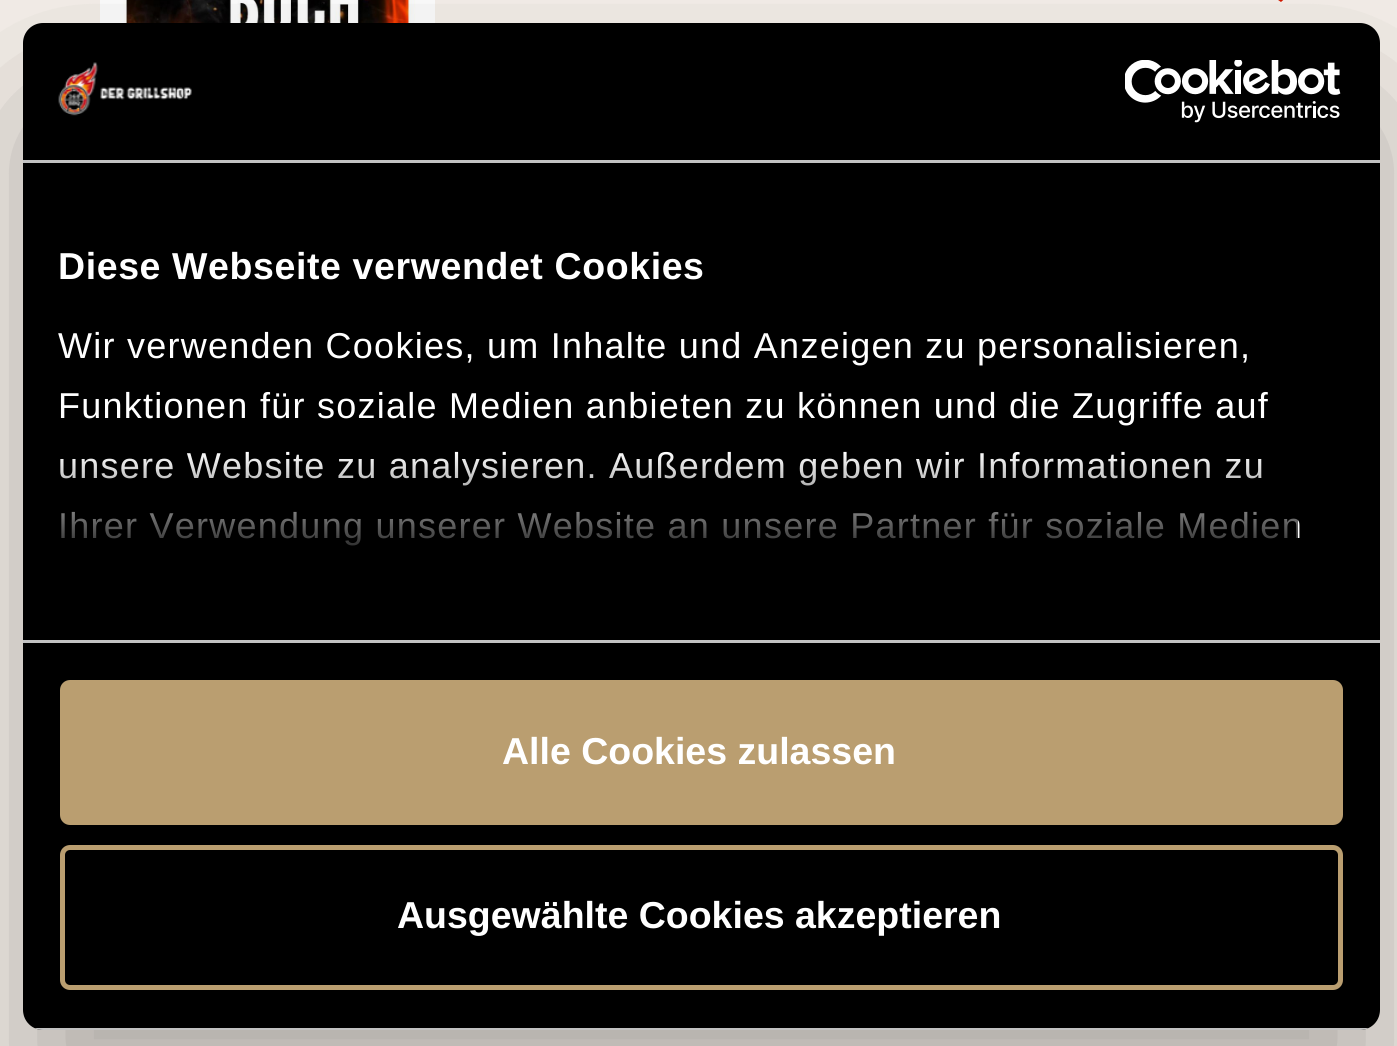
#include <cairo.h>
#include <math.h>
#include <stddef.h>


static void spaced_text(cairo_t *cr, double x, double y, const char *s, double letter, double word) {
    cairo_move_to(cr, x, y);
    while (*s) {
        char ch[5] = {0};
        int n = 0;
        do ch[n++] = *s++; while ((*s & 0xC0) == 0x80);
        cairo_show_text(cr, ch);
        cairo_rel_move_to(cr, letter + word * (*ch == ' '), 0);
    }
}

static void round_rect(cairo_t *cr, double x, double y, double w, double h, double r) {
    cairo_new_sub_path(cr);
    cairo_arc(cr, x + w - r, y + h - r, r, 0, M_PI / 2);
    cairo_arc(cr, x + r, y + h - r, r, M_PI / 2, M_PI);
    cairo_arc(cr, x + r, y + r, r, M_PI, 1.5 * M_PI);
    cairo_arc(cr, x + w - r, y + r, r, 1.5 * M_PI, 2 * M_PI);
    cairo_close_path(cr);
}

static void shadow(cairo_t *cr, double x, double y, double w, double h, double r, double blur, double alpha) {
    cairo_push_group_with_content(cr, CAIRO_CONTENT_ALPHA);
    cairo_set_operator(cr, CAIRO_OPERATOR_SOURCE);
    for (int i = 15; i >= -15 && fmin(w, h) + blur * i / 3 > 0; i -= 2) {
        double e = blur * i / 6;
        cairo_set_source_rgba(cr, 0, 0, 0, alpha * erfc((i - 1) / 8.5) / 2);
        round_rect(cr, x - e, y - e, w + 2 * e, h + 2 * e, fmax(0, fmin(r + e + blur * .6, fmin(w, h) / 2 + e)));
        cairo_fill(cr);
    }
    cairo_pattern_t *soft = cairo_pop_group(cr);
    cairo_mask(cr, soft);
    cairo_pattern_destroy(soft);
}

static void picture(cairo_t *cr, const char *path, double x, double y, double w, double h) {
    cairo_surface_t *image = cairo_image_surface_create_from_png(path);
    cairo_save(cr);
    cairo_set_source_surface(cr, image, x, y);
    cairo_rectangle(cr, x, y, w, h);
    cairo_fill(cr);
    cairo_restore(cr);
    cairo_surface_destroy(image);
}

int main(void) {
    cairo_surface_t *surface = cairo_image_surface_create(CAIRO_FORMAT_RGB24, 1397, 1046);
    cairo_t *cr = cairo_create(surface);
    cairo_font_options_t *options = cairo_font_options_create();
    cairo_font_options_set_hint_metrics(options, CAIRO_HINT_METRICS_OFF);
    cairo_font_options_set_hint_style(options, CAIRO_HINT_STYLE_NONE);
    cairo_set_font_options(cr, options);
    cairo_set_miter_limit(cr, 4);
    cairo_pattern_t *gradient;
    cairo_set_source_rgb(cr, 0.965, 0.945, 0.918);
    cairo_paint(cr);
    picture(cr, "img1.png", 100, 0, 335, 23);
    cairo_set_source_rgb(cr, 0.839, 0.098, 0);
    cairo_new_path(cr);
    cairo_move_to(cr, 1281, -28);
    cairo_line_to(cr, 1278, -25);
    cairo_line_to(cr, 1289, -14);
    cairo_line_to(cr, 1245, -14);
    cairo_line_to(cr, 1245, -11);
    cairo_line_to(cr, 1289, -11);
    cairo_line_to(cr, 1278, 0);
    cairo_line_to(cr, 1281, 2);
    cairo_line_to(cr, 1297, -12);
    cairo_close_path(cr);
    cairo_fill(cr);
    cairo_save(cr);
    cairo_set_fill_rule(cr, CAIRO_FILL_RULE_EVEN_ODD);
    cairo_new_path(cr);
    cairo_move_to(cr, 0, 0);
    cairo_line_to(cr, 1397, 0);
    cairo_line_to(cr, 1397, 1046);
    cairo_line_to(cr, 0, 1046);
    cairo_close_path(cr);
    cairo_move_to(cr, 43, 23);
    cairo_line_to(cr, 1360, 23);
    cairo_curve_to(cr, 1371, 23, 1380, 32, 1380, 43);
    cairo_line_to(cr, 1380, 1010);
    cairo_curve_to(cr, 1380, 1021, 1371, 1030, 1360, 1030);
    cairo_line_to(cr, 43, 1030);
    cairo_curve_to(cr, 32, 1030, 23, 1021, 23, 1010);
    cairo_line_to(cr, 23, 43);
    cairo_curve_to(cr, 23, 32, 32, 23, 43, 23);
    cairo_close_path(cr);
    cairo_clip(cr);
    cairo_set_source_rgb(cr, 0, 0, 0);
    shadow(cr, 23, 103, 1357, 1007, 20, 85, 0.3);
    cairo_restore(cr);
    cairo_set_source_rgb(cr, 0, 0, 0);
    round_rect(cr, 23, 23, 1357, 1007, 20);
    cairo_fill(cr);
    cairo_set_source_rgb(cr, 0.761, 0.761, 0.761);
    cairo_rectangle(cr, 23, 160, 1357, 3);
    cairo_fill(cr);
    picture(cr, "img2.png", 58, 62, 134, 54);
    picture(cr, "img3.png", 1125, 60, 216, 63);
    cairo_rectangle(cr, 23, 640, 1357, 3);
    cairo_fill(cr);
    cairo_select_font_face(cr, "Liberation Sans", CAIRO_FONT_SLANT_NORMAL, CAIRO_FONT_WEIGHT_BOLD);
    cairo_set_font_size(cr, 37.5);
    cairo_set_source_rgb(cr, 1, 1, 1);
    spaced_text(cr, 58, 279, "Diese Webseite verwendet Cookies", 0.6, 0);
    cairo_select_font_face(cr, "Liberation Sans", CAIRO_FONT_SLANT_NORMAL, CAIRO_FONT_WEIGHT_NORMAL);
    cairo_set_font_size(cr, 36);
    spaced_text(cr, 58, 358, "Wir verwenden Cookies, um Inhalte und Anzeigen zu personalisieren,", 1.25, 0);
    spaced_text(cr, 58, 418, "Funktionen für soziale Medien anbieten zu können und die Zugriffe auf", 1.25, 0);
    spaced_text(cr, 58, 478, "unsere Website zu analysieren. Außerdem geben wir Informationen zu", 1.25, 0);
    spaced_text(cr, 58, 538, "Ihrer Verwendung unserer Website an unsere Partner für soziale Medien", 1.25, 0);
    gradient = cairo_pattern_create_linear(684, 639, 684, 451);
    cairo_pattern_add_color_stop_rgba(gradient, 0, 0, 0, 0, 1);
    cairo_pattern_add_color_stop_rgba(gradient, 0.5, 0, 0, 0, 0.8);
    cairo_pattern_add_color_stop_rgba(gradient, 1, 0, 0, 0, 0);
    cairo_set_source(cr, gradient);
    cairo_pattern_destroy(gradient);
    cairo_rectangle(cr, 59, 454, 1239, 92);
    cairo_fill(cr);
    cairo_save(cr);
    round_rect(cr, 23, 23, 1357, 1007, 20);
    cairo_clip(cr);
    cairo_set_source_rgb(cr, 0.761, 0.761, 0.761);
    cairo_rectangle(cr, 34, 1028, 1335, 2);
    cairo_fill(cr);
    cairo_restore(cr);
    cairo_set_source_rgb(cr, 0.729, 0.62, 0.439);
    round_rect(cr, 62.5, 682.5, 1278, 140, 7.5);
    cairo_fill_preserve(cr);
    cairo_set_line_width(cr, 5);
    cairo_stroke(cr);
    cairo_select_font_face(cr, "Liberation Sans", CAIRO_FONT_SLANT_NORMAL, CAIRO_FONT_WEIGHT_BOLD);
    cairo_set_font_size(cr, 37.5);
    cairo_set_source_rgb(cr, 1, 1, 1);
    cairo_move_to(cr, 502, 764);
    cairo_show_text(cr, "Alle Cookies zulassen");
    round_rect(cr, 62.5, 847.5, 1278, 140, 7.5);
    cairo_set_source_rgb(cr, 0.729, 0.62, 0.439);
    cairo_stroke(cr);
    cairo_set_source_rgb(cr, 1, 1, 1);
    cairo_move_to(cr, 397, 928);
    cairo_show_text(cr, "Ausgewählte Cookies akzeptieren");
    cairo_surface_write_to_png(surface, "page.png");
    cairo_font_options_destroy(options);
    cairo_destroy(cr);
    cairo_surface_destroy(surface);
    return 0;
}
